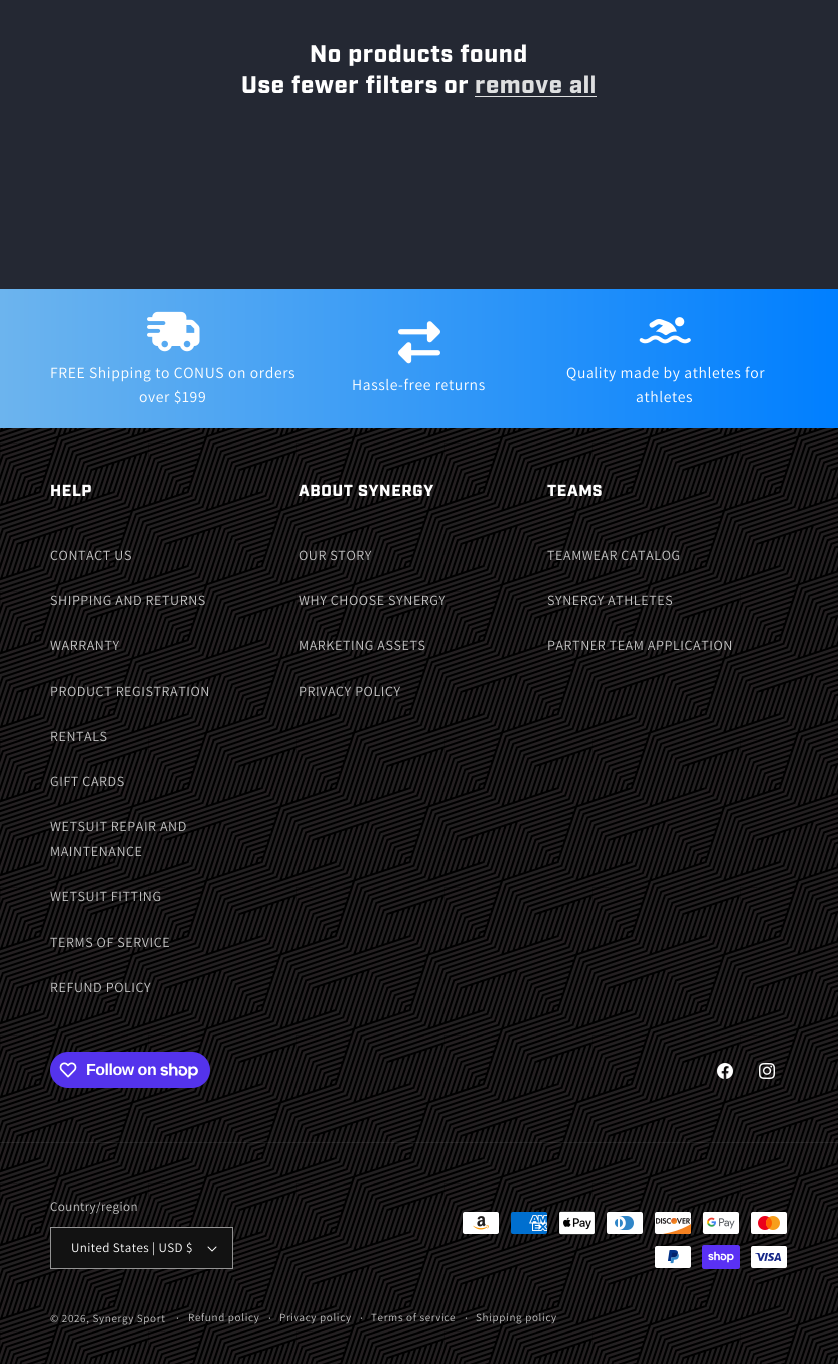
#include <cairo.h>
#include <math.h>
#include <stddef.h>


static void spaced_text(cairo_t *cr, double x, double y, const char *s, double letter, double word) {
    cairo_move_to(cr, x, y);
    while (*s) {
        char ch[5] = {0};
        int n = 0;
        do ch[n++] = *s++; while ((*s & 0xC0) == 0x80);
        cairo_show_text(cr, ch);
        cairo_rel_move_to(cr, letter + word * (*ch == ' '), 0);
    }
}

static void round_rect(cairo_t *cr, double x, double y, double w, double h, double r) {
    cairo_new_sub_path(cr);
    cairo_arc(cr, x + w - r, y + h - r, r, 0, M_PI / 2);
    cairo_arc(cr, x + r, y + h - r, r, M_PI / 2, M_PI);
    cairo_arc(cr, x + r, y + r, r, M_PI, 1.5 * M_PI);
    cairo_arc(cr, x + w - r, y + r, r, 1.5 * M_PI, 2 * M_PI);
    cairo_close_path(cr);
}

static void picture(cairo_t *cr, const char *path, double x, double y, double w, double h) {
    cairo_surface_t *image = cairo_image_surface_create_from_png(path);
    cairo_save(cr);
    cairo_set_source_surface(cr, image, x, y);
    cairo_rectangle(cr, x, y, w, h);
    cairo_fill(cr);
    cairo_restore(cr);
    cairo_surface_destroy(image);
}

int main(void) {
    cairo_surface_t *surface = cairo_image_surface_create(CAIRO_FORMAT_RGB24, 838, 1364);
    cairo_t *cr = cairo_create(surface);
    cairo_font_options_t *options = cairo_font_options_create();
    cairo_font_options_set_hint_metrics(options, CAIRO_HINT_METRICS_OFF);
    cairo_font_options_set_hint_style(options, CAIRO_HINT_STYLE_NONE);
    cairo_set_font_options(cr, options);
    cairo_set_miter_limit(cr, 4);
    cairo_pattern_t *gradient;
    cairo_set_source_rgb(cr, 0.141, 0.157, 0.2);
    cairo_paint(cr);
    cairo_select_font_face(cr, "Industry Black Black", CAIRO_FONT_SLANT_NORMAL, CAIRO_FONT_WEIGHT_NORMAL);
    cairo_set_font_size(cr, 24);
    cairo_set_source_rgb(cr, 1, 1, 1);
    spaced_text(cr, 310, 62, "No products found", 0.6, 0);
    spaced_text(cr, 241, 93, "Use fewer filters or", 0.6, 0);
    cairo_set_source_rgb(cr, 0.871, 0.875, 0.878);
    spaced_text(cr, 475, 93, "remove all", 0.6, 0);
    cairo_rectangle(cr, 475, 96, 122, 1);
    cairo_fill(cr);
    gradient = cairo_pattern_create_linear(0, 359, 838, 359);
    cairo_pattern_add_color_stop_rgba(gradient, 0, 0.424, 0.706, 0.933, 1);
    cairo_pattern_add_color_stop_rgba(gradient, 1, 0, 0.498, 1, 1);
    cairo_set_source(cr, gradient);
    cairo_pattern_destroy(gradient);
    cairo_rectangle(cr, 0, 289, 838, 139);
    cairo_fill(cr);
    picture(cr, "img1.png", 147, 311, 53, 41);
    cairo_select_font_face(cr, "Assistant", CAIRO_FONT_SLANT_NORMAL, CAIRO_FONT_WEIGHT_NORMAL);
    cairo_set_font_size(cr, 15.6);
    cairo_set_source_rgb(cr, 1, 1, 1);
    spaced_text(cr, 50, 378, "FREE Shipping to CONUS on orders", 0.6, 0);
    spaced_text(cr, 139, 402, "over $199", 0.6, 0);
    picture(cr, "img2.png", 398, 321, 42, 43);
    spaced_text(cr, 352, 390, "Hassle-free returns", 0.6, 0);
    picture(cr, "img3.png", 639, 317, 52, 27);
    spaced_text(cr, 566, 378, "Quality made by athletes for", 0.6, 0);
    spaced_text(cr, 636, 402, "athletes", 0.6, 0);
    cairo_set_source_rgb(cr, 0, 0, 0);
    cairo_rectangle(cr, 0, 428, 838, 936);
    cairo_fill(cr);
    picture(cr, "img4.png", 0, 428, 838, 936);
    cairo_select_font_face(cr, "Industry Black Black", CAIRO_FONT_SLANT_NORMAL, CAIRO_FONT_WEIGHT_NORMAL);
    cairo_set_font_size(cr, 16);
    cairo_set_source_rgb(cr, 1, 1, 1);
    spaced_text(cr, 50, 496, "HELP", 0.6, 0);
    cairo_select_font_face(cr, "Assistant", CAIRO_FONT_SLANT_NORMAL, CAIRO_FONT_WEIGHT_NORMAL);
    cairo_set_font_size(cr, 14);
    cairo_set_source_rgb(cr, 0.769, 0.769, 0.769);
    spaced_text(cr, 50, 560, "CONTACT US", 0.6, 0);
    spaced_text(cr, 50, 605, "SHIPPING AND RETURNS", 0.6, 0);
    spaced_text(cr, 50, 650, "WARRANTY", 0.6, 0);
    spaced_text(cr, 50, 696, "PRODUCT REGISTRATION", 0.6, 0);
    spaced_text(cr, 50, 741, "RENTALS", 0.6, 0);
    spaced_text(cr, 50, 786, "GIFT CARDS", 0.6, 0);
    spaced_text(cr, 50, 831, "WETSUIT REPAIR AND", 0.6, 0);
    spaced_text(cr, 50, 856, "MAINTENANCE", 0.6, 0);
    spaced_text(cr, 50, 901, "WETSUIT FITTING", 0.6, 0);
    spaced_text(cr, 50, 947, "TERMS OF SERVICE", 0.6, 0);
    spaced_text(cr, 50, 992, "REFUND POLICY", 0.6, 0);
    cairo_select_font_face(cr, "Industry Black Black", CAIRO_FONT_SLANT_NORMAL, CAIRO_FONT_WEIGHT_NORMAL);
    cairo_set_font_size(cr, 16);
    cairo_set_source_rgb(cr, 1, 1, 1);
    spaced_text(cr, 299, 496, "ABOUT SYNERGY", 0.6, 0);
    cairo_select_font_face(cr, "Assistant", CAIRO_FONT_SLANT_NORMAL, CAIRO_FONT_WEIGHT_NORMAL);
    cairo_set_font_size(cr, 14);
    cairo_set_source_rgb(cr, 0.769, 0.769, 0.769);
    spaced_text(cr, 299, 560, "OUR STORY", 0.6, 0);
    spaced_text(cr, 299, 605, "WHY CHOOSE SYNERGY", 0.6, 0);
    spaced_text(cr, 299, 650, "MARKETING ASSETS", 0.6, 0);
    spaced_text(cr, 299, 696, "PRIVACY POLICY", 0.6, 0);
    cairo_select_font_face(cr, "Industry Black Black", CAIRO_FONT_SLANT_NORMAL, CAIRO_FONT_WEIGHT_NORMAL);
    cairo_set_font_size(cr, 16);
    cairo_set_source_rgb(cr, 1, 1, 1);
    spaced_text(cr, 547, 496, "TEAMS", 0.6, 0);
    cairo_select_font_face(cr, "Assistant", CAIRO_FONT_SLANT_NORMAL, CAIRO_FONT_WEIGHT_NORMAL);
    cairo_set_font_size(cr, 14);
    cairo_set_source_rgb(cr, 0.769, 0.769, 0.769);
    spaced_text(cr, 547, 560, "TEAMWEAR CATALOG", 0.6, 0);
    spaced_text(cr, 547, 605, "SYNERGY ATHLETES", 0.6, 0);
    spaced_text(cr, 547, 650, "PARTNER TEAM APPLICATION", 0.6, 0);
    cairo_set_source_rgb(cr, 0.329, 0.2, 0.922);
    round_rect(cr, 50, 1052, 160, 36, 18);
    cairo_fill(cr);
    picture(cr, "img5.png", 59, 1062, 18, 16);
    cairo_select_font_face(cr, "Liberation Sans", CAIRO_FONT_SLANT_NORMAL, CAIRO_FONT_WEIGHT_BOLD);
    cairo_set_font_size(cr, 16);
    cairo_set_source_rgb(cr, 1, 1, 1);
    spaced_text(cr, 86, 1075, "Follow on", -0.5, 0);
    picture(cr, "img6.png", 160, 1063, 38, 16);
    picture(cr, "img7.png", 717, 1063, 16, 16);
    picture(cr, "img8.png", 759, 1063, 16, 16);
    cairo_set_source_rgba(cr, 1, 1, 1, 0.08);
    cairo_rectangle(cr, 0, 1142, 838, 1);
    cairo_fill(cr);
    cairo_select_font_face(cr, "Assistant", CAIRO_FONT_SLANT_NORMAL, CAIRO_FONT_WEIGHT_NORMAL);
    cairo_set_font_size(cr, 13);
    cairo_set_source_rgb(cr, 0.769, 0.769, 0.769);
    spaced_text(cr, 50, 1211, "Country/region", 0.4, 0);
    cairo_set_source_rgb(cr, 0.071, 0.071, 0.071);
    cairo_rectangle(cr, 51, 1228, 181, 40);
    cairo_fill(cr);
    picture(cr, "img9.png", 207, 1246, 10, 6);
    cairo_rectangle(cr, 50.5, 1227.5, 182, 41);
    cairo_set_source_rgb(cr, 0.58, 0.58, 0.58);
    cairo_set_line_width(cr, 1);
    cairo_stroke(cr);
    cairo_set_source_rgb(cr, 1, 1, 1);
    spaced_text(cr, 71, 1252, "United States | USD $", 0.4, 0);
    picture(cr, "img10.png", 463, 1212, 36, 22);
    picture(cr, "img11.png", 511, 1212, 36, 22);
    picture(cr, "img12.png", 558, 1211, 38, 24);
    picture(cr, "img13.png", 607, 1212, 36, 22);
    picture(cr, "img14.png", 655, 1212, 37, 22);
    picture(cr, "img15.png", 703, 1212, 36, 22);
    picture(cr, "img16.png", 751, 1212, 36, 22);
    picture(cr, "img17.png", 655, 1246, 36, 22);
    picture(cr, "img18.png", 702, 1245, 38, 24);
    picture(cr, "img19.png", 751, 1246, 36, 22);
    cairo_set_font_size(cr, 11);
    cairo_set_source_rgb(cr, 0.769, 0.769, 0.769);
    spaced_text(cr, 50, 1322, "© 2026, Synergy Sport", 0.7, 0);
    cairo_set_font_size(cr, 12);
    spaced_text(cr, 176, 1322, "·", 0.7, 0);
    cairo_set_font_size(cr, 11);
    spaced_text(cr, 188, 1321, "Refund policy", 0.7, 0);
    cairo_set_font_size(cr, 12);
    spaced_text(cr, 268, 1322, "·", 0.7, 0);
    cairo_set_font_size(cr, 11);
    spaced_text(cr, 279, 1321, "Privacy policy", 0.7, 0);
    cairo_set_font_size(cr, 12);
    spaced_text(cr, 360, 1322, "·", 0.7, 0);
    cairo_set_font_size(cr, 11);
    spaced_text(cr, 371, 1321, "Terms of service", 0.7, 0);
    cairo_set_font_size(cr, 12);
    spaced_text(cr, 465, 1322, "·", 0.7, 0);
    cairo_set_font_size(cr, 11);
    spaced_text(cr, 476, 1321, "Shipping policy", 0.7, 0);
    cairo_surface_write_to_png(surface, "page.png");
    cairo_font_options_destroy(options);
    cairo_destroy(cr);
    cairo_surface_destroy(surface);
    return 0;
}
